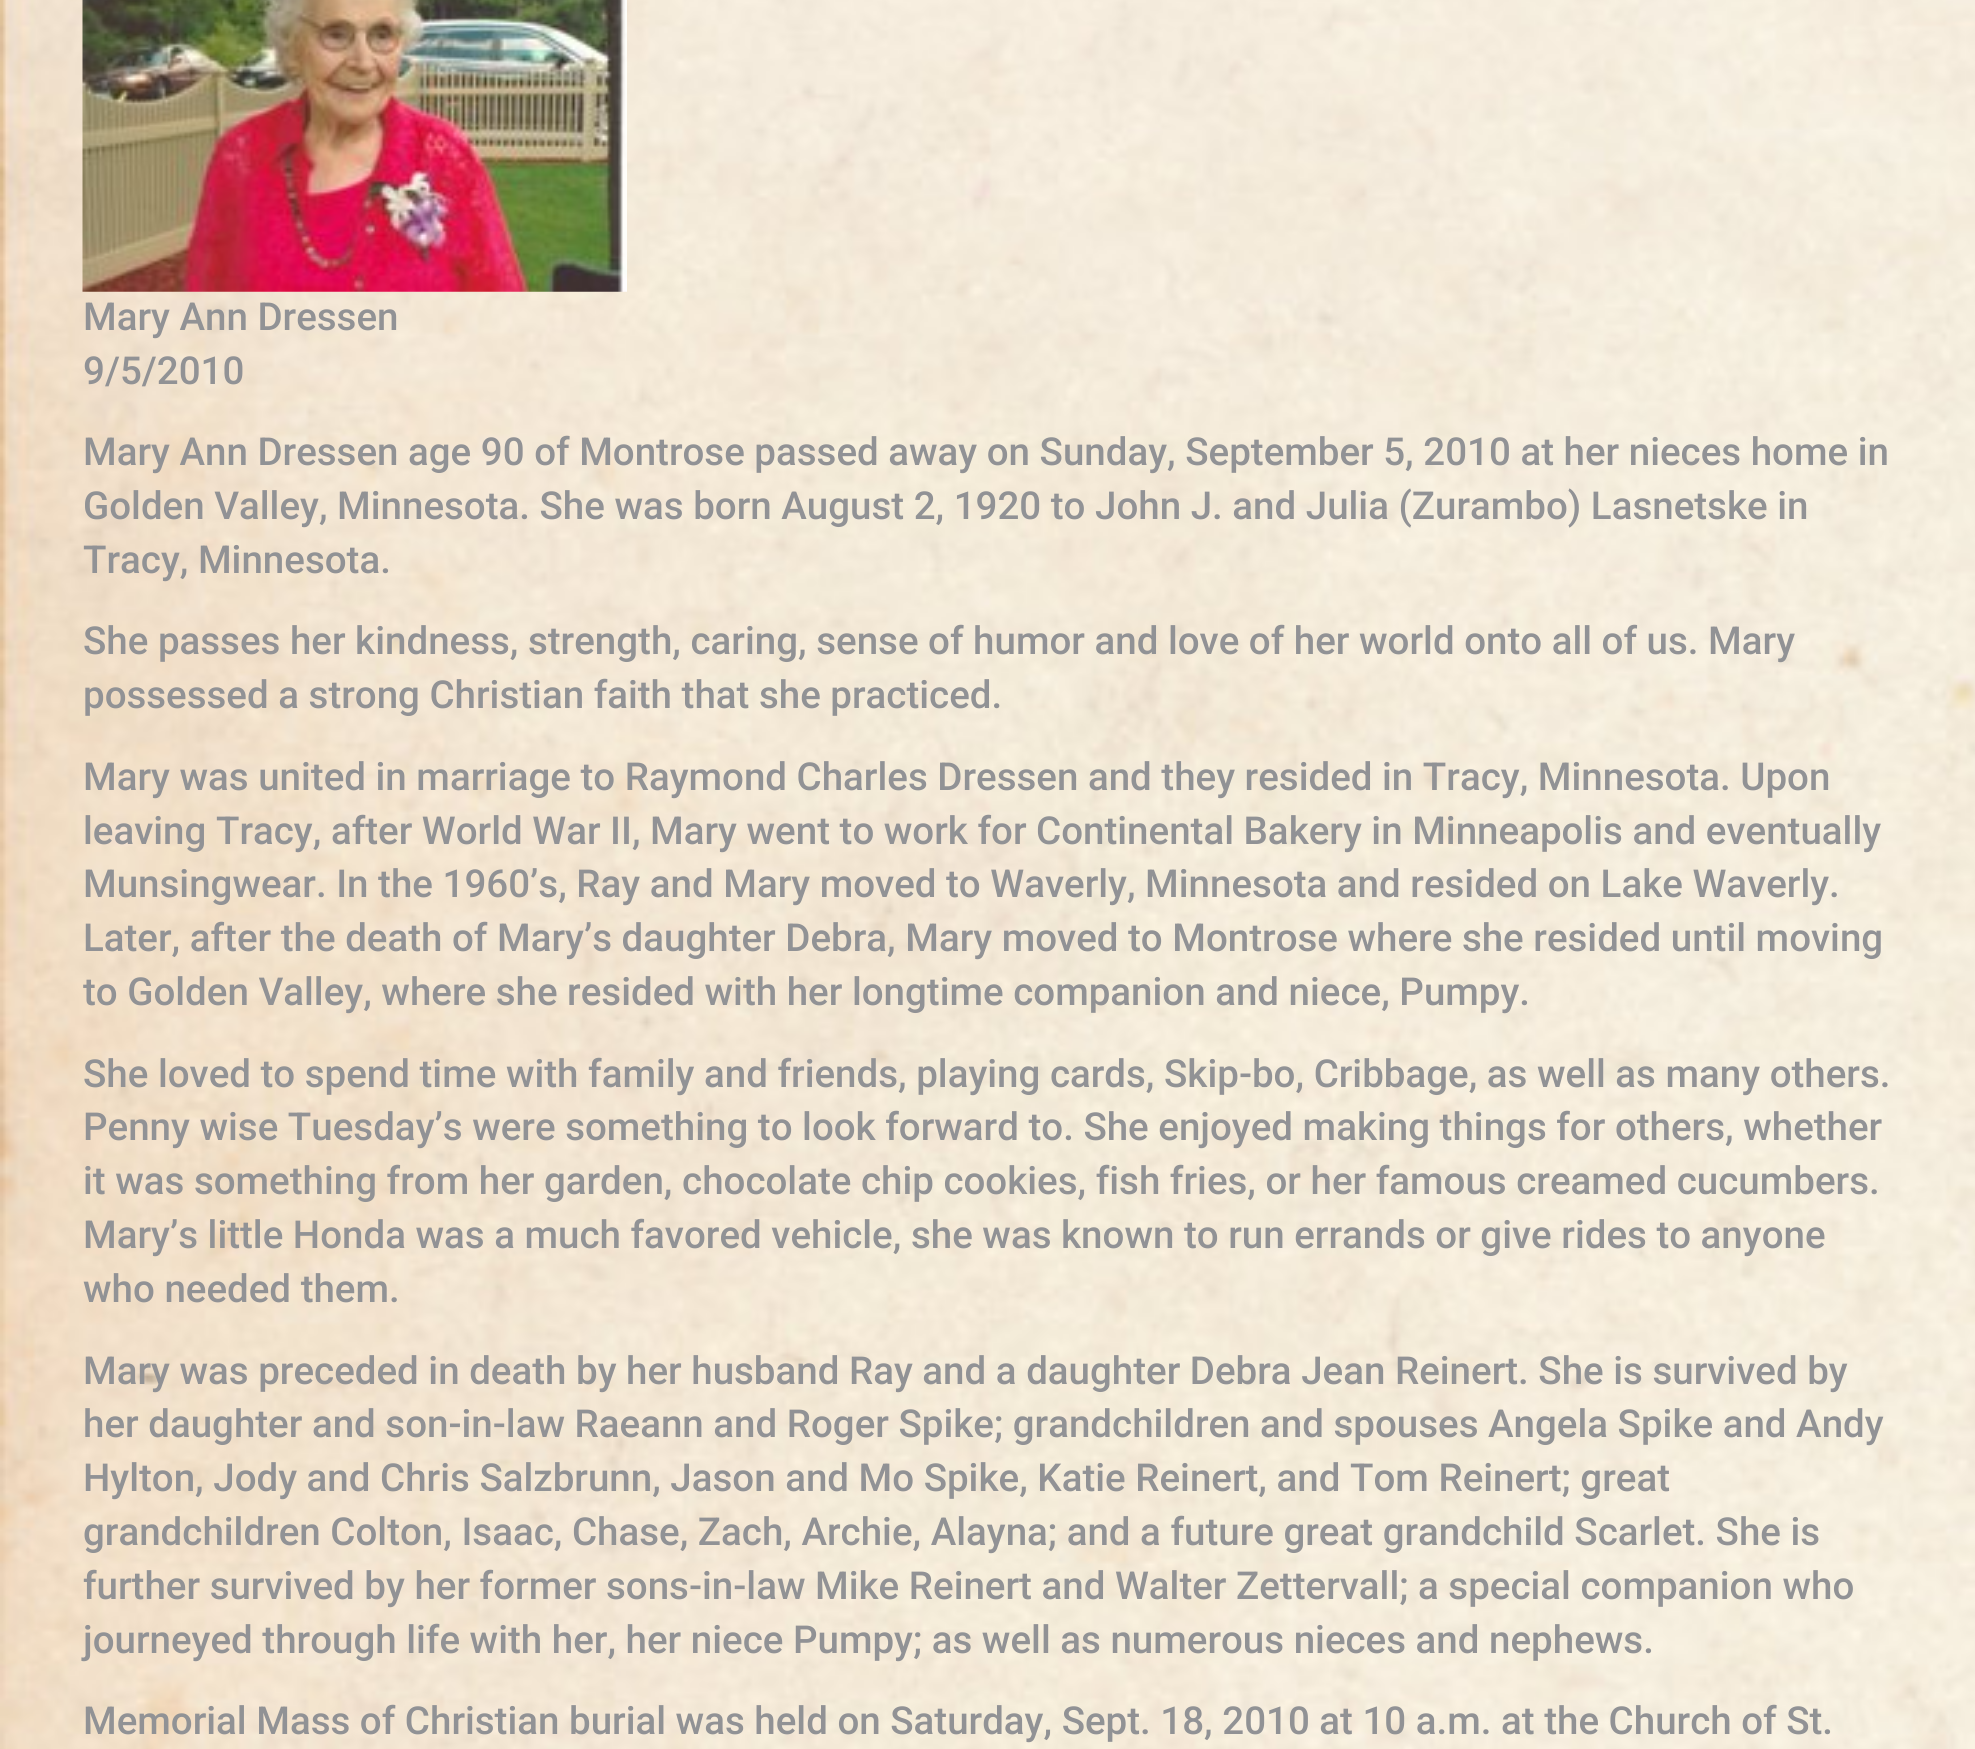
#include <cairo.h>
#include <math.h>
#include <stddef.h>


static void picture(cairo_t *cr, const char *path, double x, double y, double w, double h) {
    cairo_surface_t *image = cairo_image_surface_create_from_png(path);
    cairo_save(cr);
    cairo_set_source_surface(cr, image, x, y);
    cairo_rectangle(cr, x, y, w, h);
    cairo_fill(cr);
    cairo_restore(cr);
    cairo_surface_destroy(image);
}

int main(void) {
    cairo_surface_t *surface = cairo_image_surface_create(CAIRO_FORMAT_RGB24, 1975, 1749);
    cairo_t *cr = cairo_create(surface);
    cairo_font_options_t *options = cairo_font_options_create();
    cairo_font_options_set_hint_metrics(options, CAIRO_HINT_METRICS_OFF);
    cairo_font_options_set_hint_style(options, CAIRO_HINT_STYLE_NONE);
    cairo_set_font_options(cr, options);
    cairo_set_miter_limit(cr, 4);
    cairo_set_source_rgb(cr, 1, 1, 1);
    cairo_paint(cr);
    picture(cr, "img1.png", 0, 0, 1975, 1749);
    picture(cr, "img2.png", 82, 0, 545, 292);
    cairo_select_font_face(cr, "Roboto Medium", CAIRO_FONT_SLANT_NORMAL, CAIRO_FONT_WEIGHT_NORMAL);
    cairo_set_font_size(cr, 38.5);
    cairo_set_source_rgb(cr, 0.569, 0.573, 0.584);
    cairo_move_to(cr, 83, 330);
    cairo_show_text(cr, "Mary Ann Dressen");
    cairo_move_to(cr, 83, 384);
    cairo_show_text(cr, "9/5/2010");
    cairo_move_to(cr, 83, 465);
    cairo_show_text(cr, "Mary Ann Dressen age 90 of Montrose passed away on Sunday, September 5, 2010 at her nieces home in");
    cairo_move_to(cr, 83, 519);
    cairo_show_text(cr, "Golden Valley, Minnesota. She was born August 2, 1920 to John J. and Julia (Zurambo) Lasnetske in");
    cairo_move_to(cr, 83, 573);
    cairo_show_text(cr, "Tracy, Minnesota.");
    cairo_move_to(cr, 83, 654);
    cairo_show_text(cr, "She passes her kindness, strength, caring, sense of humor and love of her world onto all of us. Mary");
    cairo_move_to(cr, 83, 708);
    cairo_show_text(cr, "possessed a strong Christian faith that she practiced.");
    cairo_move_to(cr, 83, 790);
    cairo_show_text(cr, "Mary was united in marriage to Raymond Charles Dressen and they resided in Tracy, Minnesota. Upon");
    cairo_move_to(cr, 83, 844);
    cairo_show_text(cr, "leaving Tracy, after World War II, Mary went to work for Continental Bakery in Minneapolis and eventually");
    cairo_move_to(cr, 83, 897);
    cairo_show_text(cr, "Munsingwear. In the 1960’s, Ray and Mary moved to Waverly, Minnesota and resided on Lake Waverly.");
    cairo_move_to(cr, 83, 951);
    cairo_show_text(cr, "Later, after the death of Mary’s daughter Debra, Mary moved to Montrose where she resided until moving");
    cairo_move_to(cr, 83, 1005);
    cairo_show_text(cr, "to Golden Valley, where she resided with her longtime companion and niece, Pumpy.");
    cairo_move_to(cr, 83, 1087);
    cairo_show_text(cr, "She loved to spend time with family and friends, playing cards, Skip-bo, Cribbage, as well as many others.");
    cairo_move_to(cr, 83, 1140);
    cairo_show_text(cr, "Penny wise Tuesday’s were something to look forward to. She enjoyed making things for others, whether");
    cairo_move_to(cr, 83, 1194);
    cairo_show_text(cr, "it was something from her garden, chocolate chip cookies, fish fries, or her famous creamed cucumbers.");
    cairo_move_to(cr, 83, 1248);
    cairo_show_text(cr, "Mary’s little Honda was a much favored vehicle, she was known to run errands or give rides to anyone");
    cairo_move_to(cr, 83, 1302);
    cairo_show_text(cr, "who needed them.");
    cairo_move_to(cr, 83, 1384);
    cairo_show_text(cr, "Mary was preceded in death by her husband Ray and a daughter Debra Jean Reinert. She is survived by");
    cairo_move_to(cr, 83, 1437);
    cairo_show_text(cr, "her daughter and son-in-law Raeann and Roger Spike; grandchildren and spouses Angela Spike and Andy");
    cairo_move_to(cr, 83, 1491);
    cairo_show_text(cr, "Hylton, Jody and Chris Salzbrunn, Jason and Mo Spike, Katie Reinert, and Tom Reinert; great");
    cairo_move_to(cr, 83, 1545);
    cairo_show_text(cr, "grandchildren Colton, Isaac, Chase, Zach, Archie, Alayna; and a future great grandchild Scarlet. She is");
    cairo_move_to(cr, 83, 1599);
    cairo_show_text(cr, "further survived by her former sons-in-law Mike Reinert and Walter Zettervall; a special companion who");
    cairo_move_to(cr, 83, 1653);
    cairo_show_text(cr, "journeyed through life with her, her niece Pumpy; as well as numerous nieces and nephews.");
    cairo_move_to(cr, 83, 1734);
    cairo_show_text(cr, "Memorial Mass of Christian burial was held on Saturday, Sept. 18, 2010 at 10 a.m. at the Church of St.");
    cairo_surface_write_to_png(surface, "page.png");
    cairo_font_options_destroy(options);
    cairo_destroy(cr);
    cairo_surface_destroy(surface);
    return 0;
}
